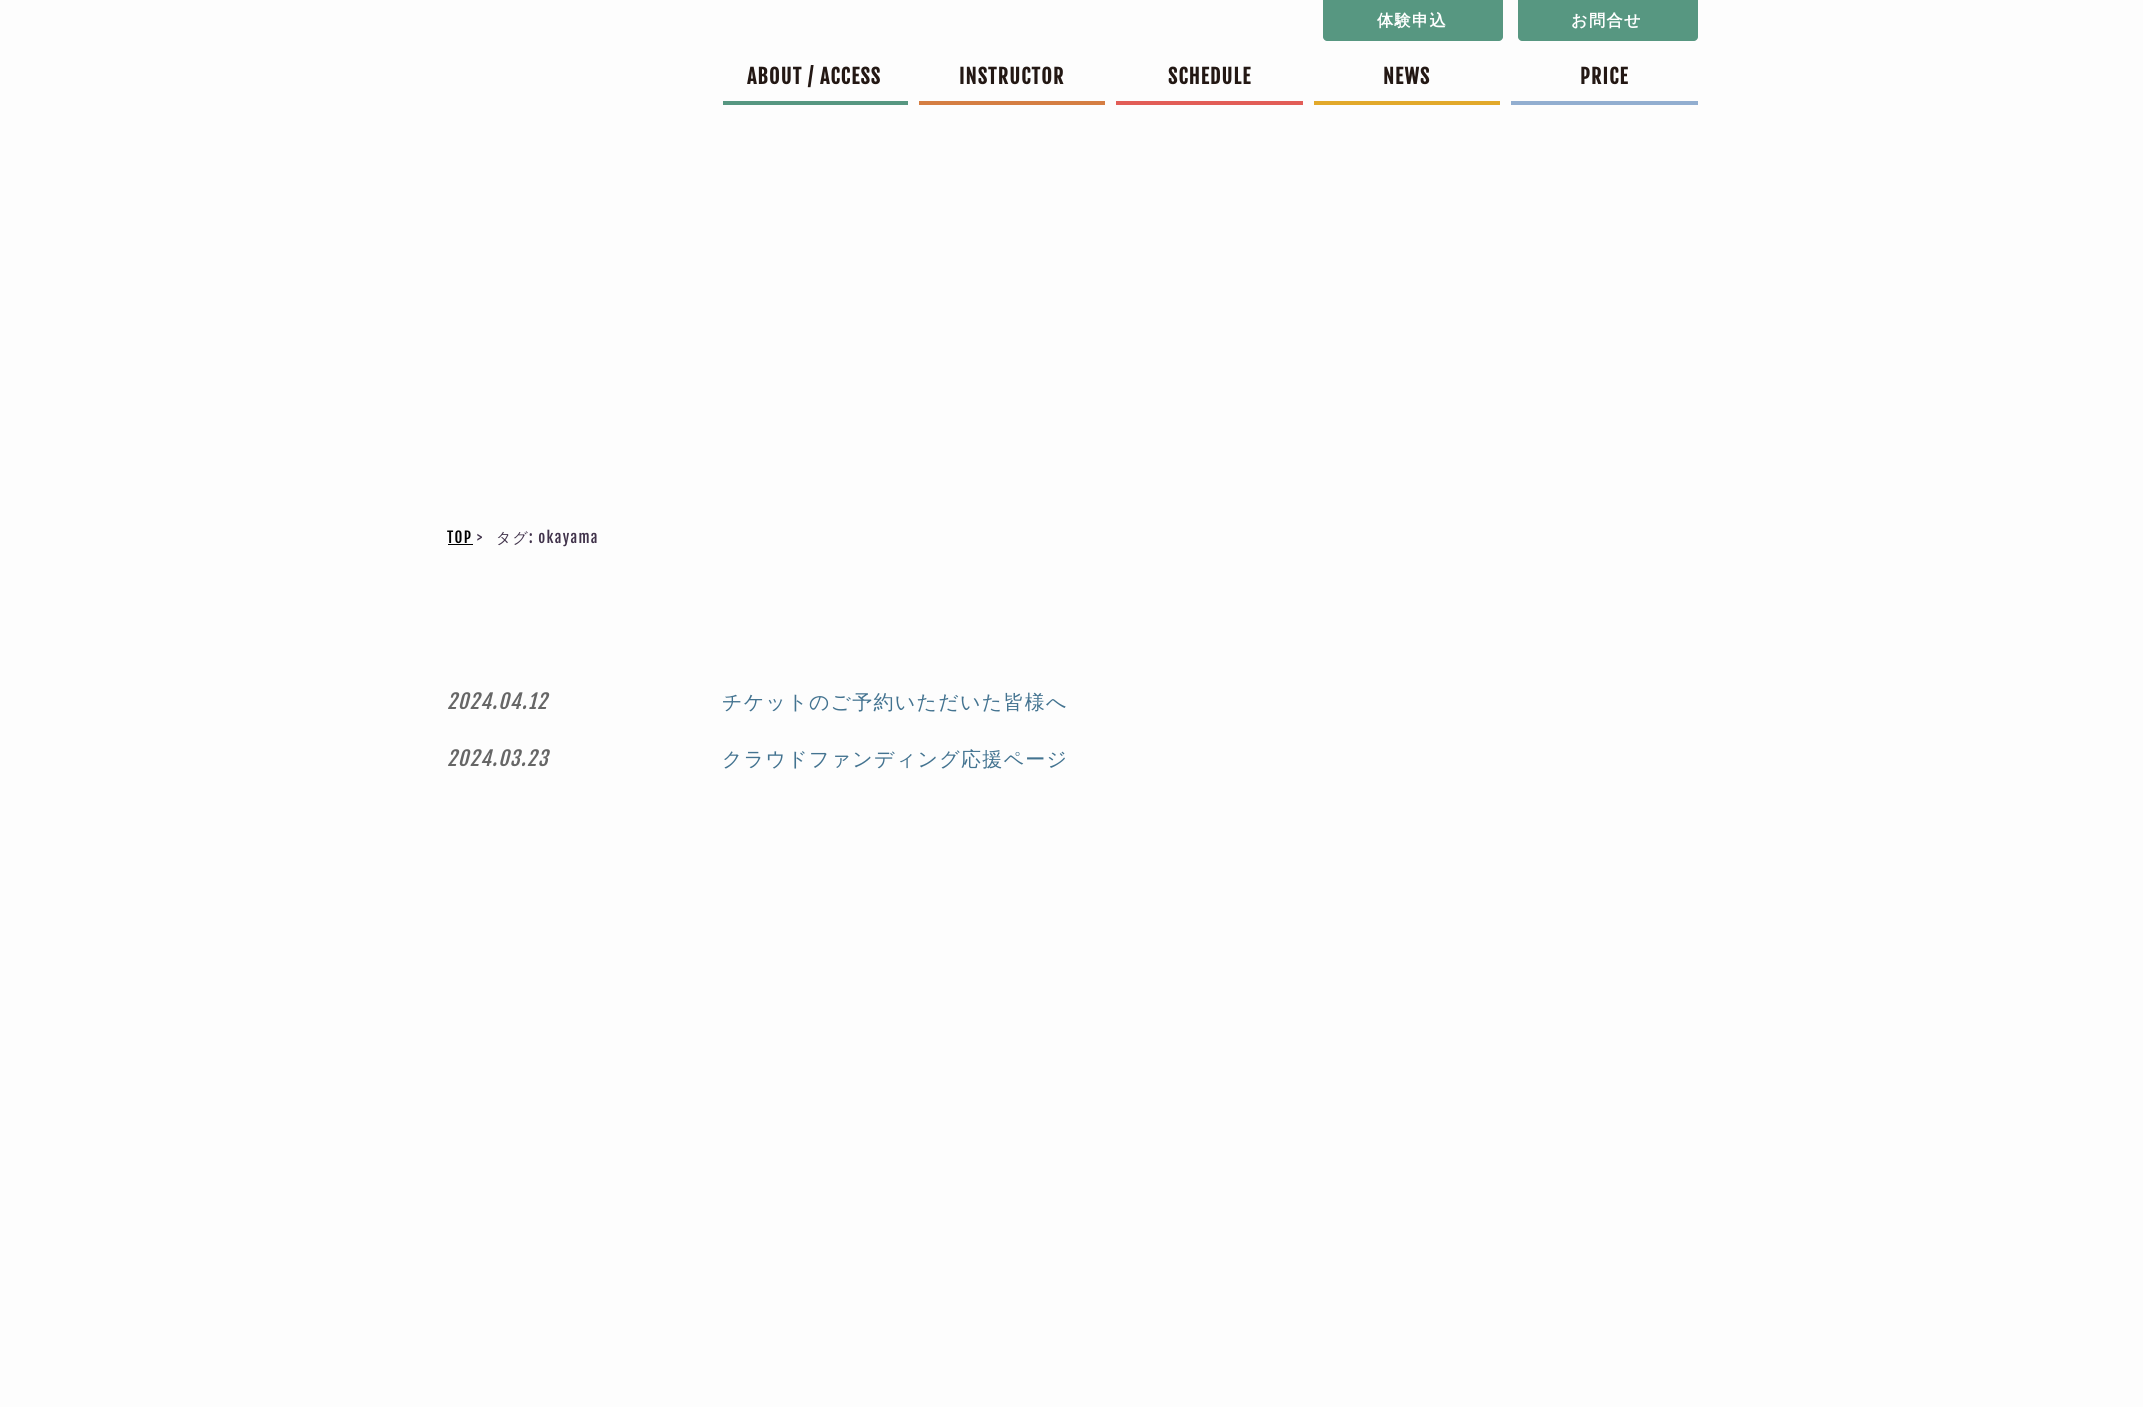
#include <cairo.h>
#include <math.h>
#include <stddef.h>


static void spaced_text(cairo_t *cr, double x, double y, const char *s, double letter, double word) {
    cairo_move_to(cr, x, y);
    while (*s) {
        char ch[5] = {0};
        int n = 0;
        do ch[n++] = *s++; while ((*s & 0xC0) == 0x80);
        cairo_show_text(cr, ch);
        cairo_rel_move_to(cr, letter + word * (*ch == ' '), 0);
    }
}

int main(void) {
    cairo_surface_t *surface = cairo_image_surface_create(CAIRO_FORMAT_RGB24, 2143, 1407);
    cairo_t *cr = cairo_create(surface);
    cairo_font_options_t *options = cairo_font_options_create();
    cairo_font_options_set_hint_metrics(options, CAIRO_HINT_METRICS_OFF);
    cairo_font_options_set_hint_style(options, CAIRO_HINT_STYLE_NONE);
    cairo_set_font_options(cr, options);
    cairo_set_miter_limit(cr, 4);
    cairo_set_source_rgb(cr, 0.992, 0.992, 0.992);
    cairo_paint(cr);
    cairo_set_source_rgb(cr, 0.341, 0.592, 0.506);
    cairo_new_path(cr);
    cairo_move_to(cr, 1323, 0);
    cairo_line_to(cr, 1503, 0);
    cairo_line_to(cr, 1503, 37);
    cairo_curve_to(cr, 1503, 39, 1501, 41, 1499, 41);
    cairo_line_to(cr, 1327, 41);
    cairo_curve_to(cr, 1325, 41, 1323, 39, 1323, 37);
    cairo_close_path(cr);
    cairo_fill(cr);
    cairo_select_font_face(cr, "WenQuanYi Zen Hei", CAIRO_FONT_SLANT_NORMAL, CAIRO_FONT_WEIGHT_BOLD);
    cairo_set_font_size(cr, 16.25);
    cairo_set_source_rgb(cr, 1, 1, 1);
    spaced_text(cr, 1377, 26, "体験申込", 1.25, 0);
    cairo_set_source_rgb(cr, 0.341, 0.592, 0.506);
    cairo_new_path(cr);
    cairo_move_to(cr, 1518, 0);
    cairo_line_to(cr, 1698, 0);
    cairo_line_to(cr, 1698, 37);
    cairo_curve_to(cr, 1698, 39, 1696, 41, 1694, 41);
    cairo_line_to(cr, 1522, 41);
    cairo_curve_to(cr, 1520, 41, 1518, 39, 1518, 37);
    cairo_close_path(cr);
    cairo_fill(cr);
    cairo_set_source_rgb(cr, 1, 1, 1);
    spaced_text(cr, 1571, 26, "お問合せ", 1.25, 0);
    cairo_set_source_rgb(cr, 0.341, 0.592, 0.506);
    cairo_rectangle(cr, 723, 101, 185, 4);
    cairo_fill(cr);
    cairo_select_font_face(cr, "Fjalla One", CAIRO_FONT_SLANT_NORMAL, CAIRO_FONT_WEIGHT_BOLD);
    cairo_set_font_size(cr, 20);
    cairo_set_source_rgb(cr, 0.137, 0.094, 0.082);
    spaced_text(cr, 747, 84, "ABOUT / ACCESS", 1.25, 0);
    cairo_set_source_rgb(cr, 0.835, 0.494, 0.263);
    cairo_rectangle(cr, 919, 101, 186, 4);
    cairo_fill(cr);
    cairo_set_source_rgb(cr, 0.137, 0.094, 0.082);
    spaced_text(cr, 959, 84, "INSTRUCTOR", 1.25, 0);
    cairo_set_source_rgb(cr, 0.886, 0.365, 0.341);
    cairo_rectangle(cr, 1116, 101, 187, 4);
    cairo_fill(cr);
    cairo_set_source_rgb(cr, 0.137, 0.094, 0.082);
    spaced_text(cr, 1168, 84, "SCHEDULE", 1.25, 0);
    cairo_set_source_rgb(cr, 0.886, 0.663, 0.169);
    cairo_rectangle(cr, 1314, 101, 186, 4);
    cairo_fill(cr);
    cairo_set_source_rgb(cr, 0.137, 0.094, 0.082);
    spaced_text(cr, 1383, 84, "NEWS", 1.25, 0);
    cairo_set_source_rgb(cr, 0.573, 0.682, 0.816);
    cairo_rectangle(cr, 1511, 101, 187, 4);
    cairo_fill(cr);
    cairo_set_source_rgb(cr, 0.137, 0.094, 0.082);
    spaced_text(cr, 1580, 84, "PRICE", 1.25, 0);
    cairo_select_font_face(cr, "Fjalla One", CAIRO_FONT_SLANT_NORMAL, CAIRO_FONT_WEIGHT_NORMAL);
    cairo_set_font_size(cr, 15);
    cairo_set_source_rgb(cr, 0, 0, 0);
    spaced_text(cr, 447, 543, "TOP", 1.25, 0);
    cairo_rectangle(cr, 448, 544, 25, 1);
    cairo_fill(cr);
    cairo_set_source_rgb(cr, 0.255, 0.2, 0.294);
    spaced_text(cr, 477, 543, ">", 1.25, 0);
    cairo_select_font_face(cr, "WenQuanYi Zen Hei Medium", CAIRO_FONT_SLANT_NORMAL, CAIRO_FONT_WEIGHT_NORMAL);
    spaced_text(cr, 496, 543, "タグ", 1.25, 0);
    cairo_select_font_face(cr, "Fjalla One", CAIRO_FONT_SLANT_NORMAL, CAIRO_FONT_WEIGHT_NORMAL);
    spaced_text(cr, 529, 543, ": okayama", 1.25, 0);
    cairo_select_font_face(cr, "Fjalla One", CAIRO_FONT_SLANT_ITALIC, CAIRO_FONT_WEIGHT_NORMAL);
    cairo_set_font_size(cr, 20);
    cairo_set_source_rgb(cr, 0.4, 0.4, 0.4);
    spaced_text(cr, 447, 709, "2024.04.12", 1.25, 0);
    cairo_select_font_face(cr, "WenQuanYi Zen Hei Medium", CAIRO_FONT_SLANT_NORMAL, CAIRO_FONT_WEIGHT_NORMAL);
    cairo_set_source_rgb(cr, 0.263, 0.451, 0.565);
    spaced_text(cr, 722, 709, "チケットのご予約いただいた皆様へ", 1.25, 0);
    cairo_select_font_face(cr, "Fjalla One", CAIRO_FONT_SLANT_ITALIC, CAIRO_FONT_WEIGHT_NORMAL);
    cairo_set_source_rgb(cr, 0.4, 0.4, 0.4);
    spaced_text(cr, 447, 766, "2024.03.23", 1.25, 0);
    cairo_select_font_face(cr, "WenQuanYi Zen Hei Medium", CAIRO_FONT_SLANT_NORMAL, CAIRO_FONT_WEIGHT_NORMAL);
    cairo_set_source_rgb(cr, 0.263, 0.451, 0.565);
    spaced_text(cr, 722, 766, "クラウドファンディング応援ページ", 1.25, 0);
    cairo_surface_write_to_png(surface, "page.png");
    cairo_font_options_destroy(options);
    cairo_destroy(cr);
    cairo_surface_destroy(surface);
    return 0;
}
